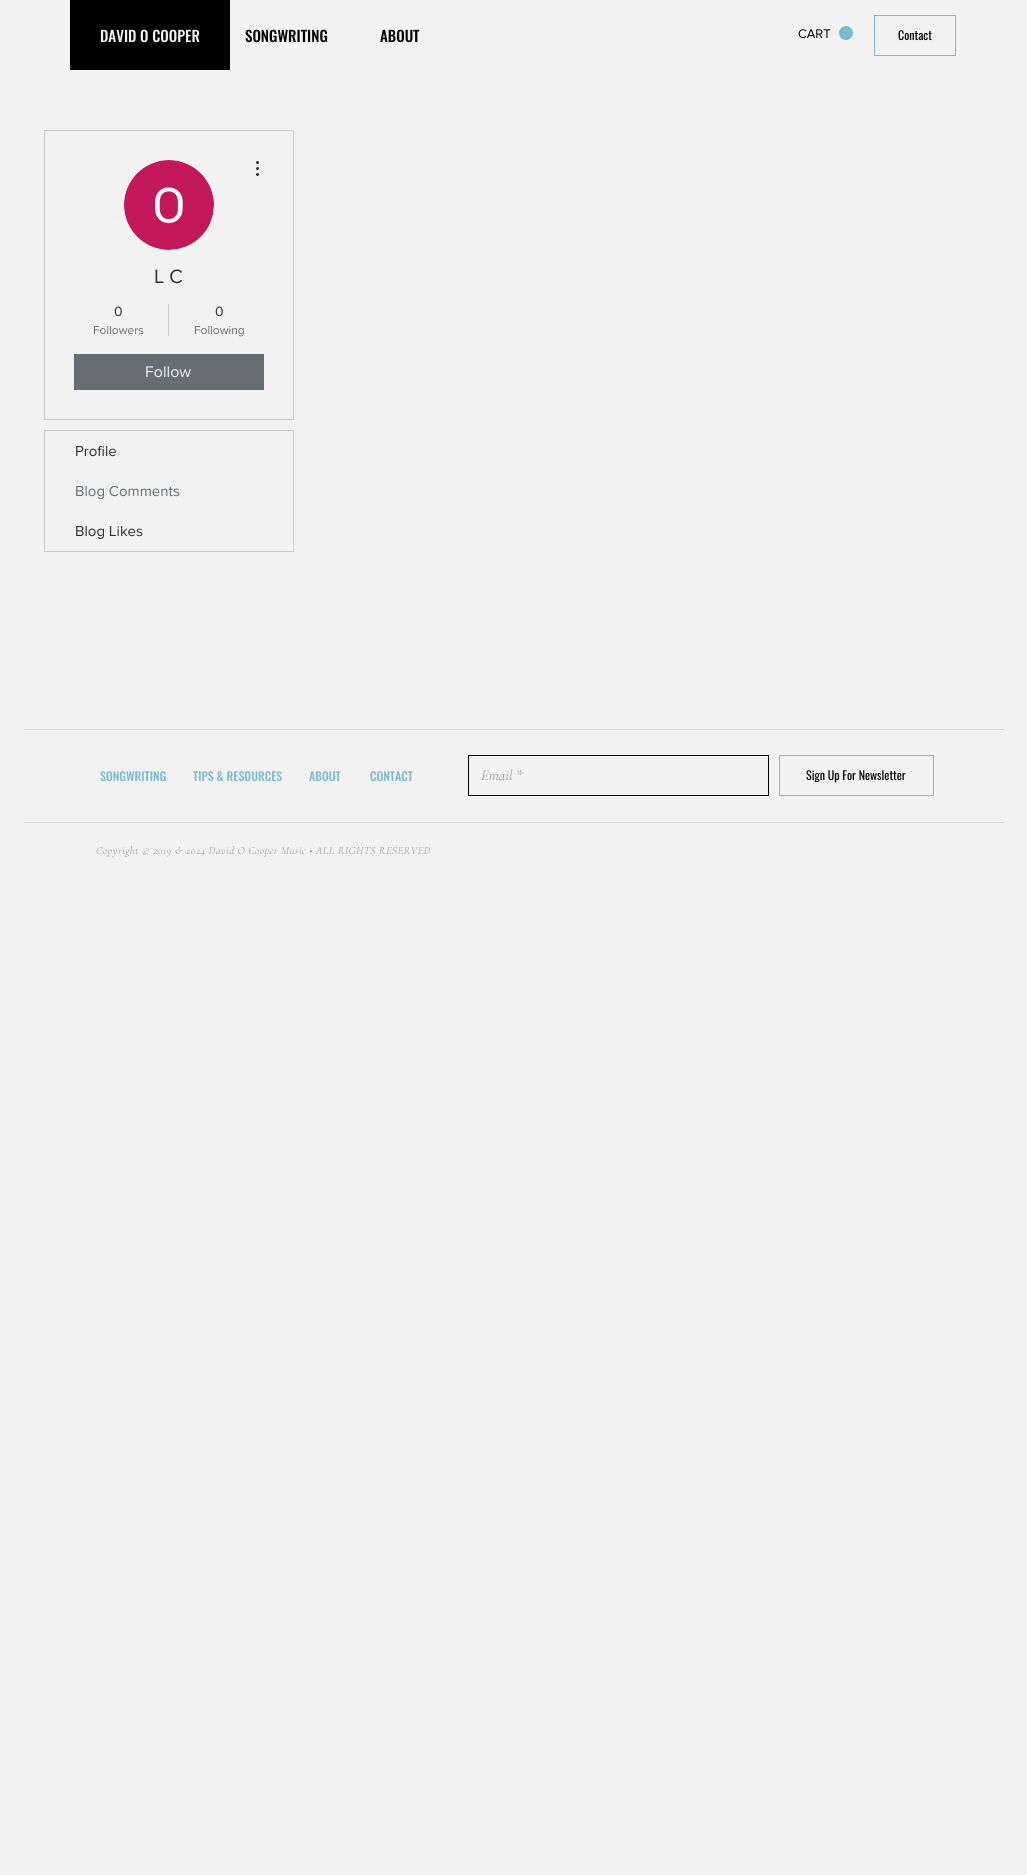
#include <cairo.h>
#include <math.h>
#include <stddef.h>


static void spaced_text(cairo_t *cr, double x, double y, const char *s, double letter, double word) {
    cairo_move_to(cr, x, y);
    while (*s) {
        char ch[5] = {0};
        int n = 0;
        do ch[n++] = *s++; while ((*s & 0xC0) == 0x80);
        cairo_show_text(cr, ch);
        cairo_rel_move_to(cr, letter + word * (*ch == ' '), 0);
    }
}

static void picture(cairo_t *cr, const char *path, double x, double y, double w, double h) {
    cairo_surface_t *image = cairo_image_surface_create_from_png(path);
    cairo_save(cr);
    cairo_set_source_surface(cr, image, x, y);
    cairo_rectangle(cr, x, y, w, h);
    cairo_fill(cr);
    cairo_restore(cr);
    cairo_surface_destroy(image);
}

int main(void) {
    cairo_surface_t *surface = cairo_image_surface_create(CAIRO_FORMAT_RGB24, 1027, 1875);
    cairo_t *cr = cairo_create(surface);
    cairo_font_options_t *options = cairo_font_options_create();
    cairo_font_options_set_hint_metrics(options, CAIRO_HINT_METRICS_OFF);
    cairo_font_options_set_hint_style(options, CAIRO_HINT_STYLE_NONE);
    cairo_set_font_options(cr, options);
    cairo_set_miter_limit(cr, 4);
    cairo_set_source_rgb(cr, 0.949, 0.949, 0.949);
    cairo_paint(cr);
    cairo_set_source_rgb(cr, 0, 0, 0);
    cairo_rectangle(cr, 70, 0, 160, 70);
    cairo_fill(cr);
    cairo_select_font_face(cr, "Oswald Medium", CAIRO_FONT_SLANT_NORMAL, CAIRO_FONT_WEIGHT_NORMAL);
    cairo_set_font_size(cr, 15);
    cairo_set_source_rgb(cr, 0.949, 0.949, 0.949);
    cairo_move_to(cr, 100, 42);
    cairo_show_text(cr, "DAVID O COOPER");
    cairo_set_source_rgb(cr, 0, 0, 0);
    cairo_move_to(cr, 245, 42);
    cairo_show_text(cr, "SONGWRITING");
    cairo_move_to(cr, 380, 42);
    cairo_show_text(cr, "ABOUT");
    cairo_set_source_rgb(cr, 0.486, 0.733, 0.812);
    cairo_new_path(cr);
    cairo_arc(cr, 846, 33, 7, 0, 2 * M_PI);
    cairo_fill(cr);
    cairo_select_font_face(cr, "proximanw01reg", CAIRO_FONT_SLANT_NORMAL, CAIRO_FONT_WEIGHT_NORMAL);
    cairo_set_font_size(cr, 13);
    cairo_set_source_rgb(cr, 0, 0, 0);
    cairo_move_to(cr, 798, 38);
    cairo_show_text(cr, "CART");
    cairo_rectangle(cr, 874.5, 15.5, 81, 40);
    cairo_set_source_rgb(cr, 0.486, 0.733, 0.812);
    cairo_set_line_width(cr, 1);
    cairo_stroke(cr);
    cairo_select_font_face(cr, "Oswald", CAIRO_FONT_SLANT_NORMAL, CAIRO_FONT_WEIGHT_NORMAL);
    cairo_set_font_size(cr, 12);
    cairo_set_source_rgb(cr, 0, 0, 0);
    cairo_move_to(cr, 898, 40);
    cairo_show_text(cr, "Contact");
    cairo_rectangle(cr, 44.5, 130.5, 249, 289);
    cairo_set_source_rgb(cr, 0.796, 0.796, 0.796);
    cairo_stroke(cr);
    cairo_set_source_rgb(cr, 0.847, 0.847, 0.847);
    cairo_arc(cr, 169, 205, 45, 0, 2 * M_PI);
    cairo_fill(cr);
    picture(cr, "img1.png", 124, 160, 90, 90);
    picture(cr, "img2.png", 256, 161, 3, 15);
    cairo_select_font_face(cr, "proximanw01reg", CAIRO_FONT_SLANT_NORMAL, CAIRO_FONT_WEIGHT_NORMAL);
    cairo_set_font_size(cr, 20);
    cairo_set_source_rgb(cr, 0.184, 0.184, 0.188);
    cairo_move_to(cr, 154, 283);
    cairo_show_text(cr, "L C");
    cairo_set_font_size(cr, 14);
    cairo_move_to(cr, 114, 316);
    cairo_show_text(cr, "0");
    cairo_set_font_size(cr, 12);
    cairo_set_source_rgb(cr, 0.416, 0.416, 0.416);
    cairo_move_to(cr, 93, 334);
    cairo_show_text(cr, "Followers");
    cairo_set_source_rgb(cr, 0.796, 0.796, 0.796);
    cairo_rectangle(cr, 168, 304, 1, 32);
    cairo_fill(cr);
    cairo_set_font_size(cr, 14);
    cairo_set_source_rgb(cr, 0.184, 0.184, 0.188);
    cairo_move_to(cr, 215, 316);
    cairo_show_text(cr, "0");
    cairo_set_font_size(cr, 12);
    cairo_set_source_rgb(cr, 0.416, 0.416, 0.416);
    cairo_move_to(cr, 194, 334);
    cairo_show_text(cr, "Following");
    cairo_set_source_rgb(cr, 0.404, 0.431, 0.443);
    cairo_rectangle(cr, 74, 354, 190, 36);
    cairo_fill(cr);
    cairo_set_font_size(cr, 16);
    cairo_set_source_rgb(cr, 0.949, 0.949, 0.949);
    cairo_move_to(cr, 145, 377);
    cairo_show_text(cr, "Follow");
    cairo_rectangle(cr, 44.5, 430.5, 249, 121);
    cairo_set_source_rgb(cr, 0.796, 0.796, 0.796);
    cairo_stroke(cr);
    cairo_set_font_size(cr, 15);
    cairo_set_source_rgb(cr, 0.184, 0.184, 0.188);
    cairo_move_to(cr, 75, 456);
    cairo_show_text(cr, "Profile");
    cairo_set_source_rgb(cr, 0.404, 0.431, 0.443);
    cairo_move_to(cr, 75, 496);
    cairo_show_text(cr, "Blog Comments");
    cairo_set_source_rgb(cr, 0.184, 0.184, 0.188);
    cairo_move_to(cr, 75, 536);
    cairo_show_text(cr, "Blog Likes");
    cairo_set_source_rgb(cr, 0.859, 0.859, 0.859);
    cairo_rectangle(cr, 24, 729, 980, 1);
    cairo_fill(cr);
    cairo_select_font_face(cr, "Oswald Medium", CAIRO_FONT_SLANT_NORMAL, CAIRO_FONT_WEIGHT_NORMAL);
    cairo_set_font_size(cr, 12);
    cairo_set_source_rgb(cr, 0.486, 0.733, 0.812);
    cairo_move_to(cr, 100, 781);
    cairo_show_text(cr, "SONGWRITING");
    cairo_move_to(cr, 193, 781);
    cairo_show_text(cr, "TIPS & RESOURCES");
    cairo_move_to(cr, 309, 781);
    cairo_show_text(cr, "ABOUT");
    cairo_move_to(cr, 370, 781);
    cairo_show_text(cr, "CONTACT");
    cairo_rectangle(cr, 468.5, 755.5, 300, 40);
    cairo_set_source_rgb(cr, 0, 0, 0);
    cairo_stroke(cr);
    cairo_select_font_face(cr, "Cormorant Garamond Light", CAIRO_FONT_SLANT_ITALIC, CAIRO_FONT_WEIGHT_NORMAL);
    cairo_set_font_size(cr, 15);
    cairo_set_source_rgb(cr, 0.557, 0.553, 0.569);
    cairo_move_to(cr, 481, 780);
    cairo_show_text(cr, "Email *");
    cairo_rectangle(cr, 779.5, 755.5, 154, 40);
    cairo_set_source_rgb(cr, 0.486, 0.733, 0.812);
    cairo_stroke(cr);
    cairo_select_font_face(cr, "Oswald", CAIRO_FONT_SLANT_NORMAL, CAIRO_FONT_WEIGHT_NORMAL);
    cairo_set_font_size(cr, 12);
    cairo_set_source_rgb(cr, 0, 0, 0);
    cairo_move_to(cr, 806, 780);
    cairo_show_text(cr, "Sign Up For Newsletter");
    cairo_set_source_rgb(cr, 0.859, 0.859, 0.859);
    cairo_rectangle(cr, 24, 822, 980, 1);
    cairo_fill(cr);
    cairo_select_font_face(cr, "Cormorant Garamond Light", CAIRO_FONT_SLANT_ITALIC, CAIRO_FONT_WEIGHT_NORMAL);
    cairo_set_font_size(cr, 11);
    cairo_set_source_rgb(cr, 0.557, 0.553, 0.569);
    spaced_text(cr, 96, 854, "Copyright © 2019 & 2024 David O Cooper Music • ALL RIGHTS RESERVED", 0.45, 0);
    cairo_surface_write_to_png(surface, "page.png");
    cairo_font_options_destroy(options);
    cairo_destroy(cr);
    cairo_surface_destroy(surface);
    return 0;
}
